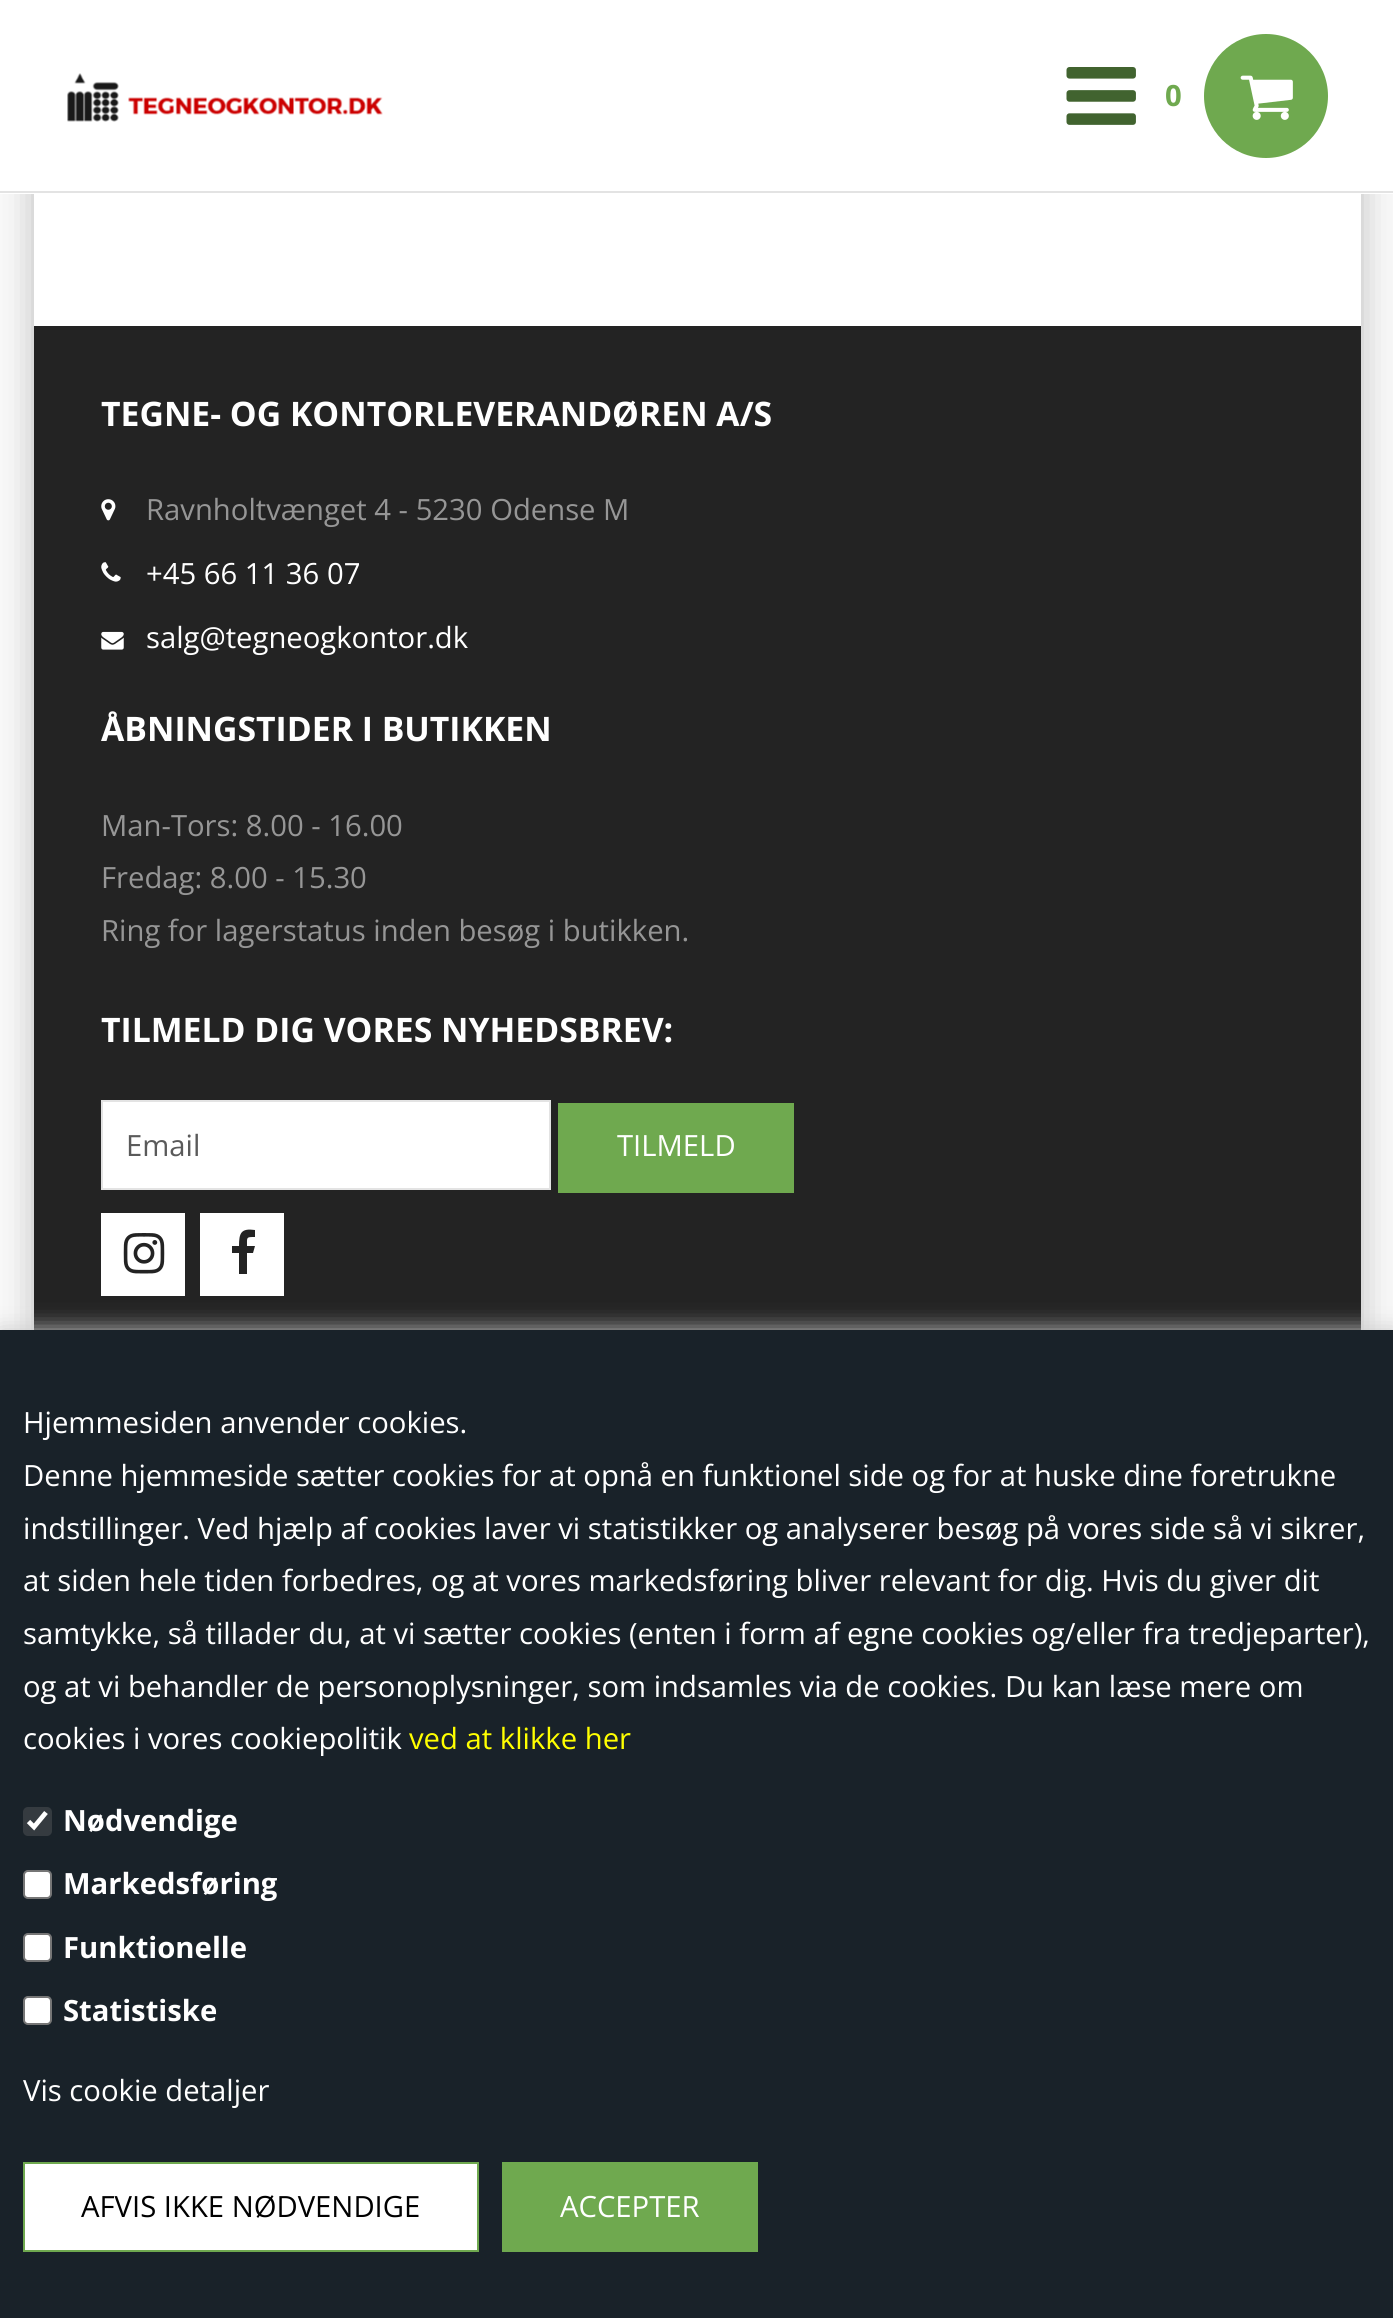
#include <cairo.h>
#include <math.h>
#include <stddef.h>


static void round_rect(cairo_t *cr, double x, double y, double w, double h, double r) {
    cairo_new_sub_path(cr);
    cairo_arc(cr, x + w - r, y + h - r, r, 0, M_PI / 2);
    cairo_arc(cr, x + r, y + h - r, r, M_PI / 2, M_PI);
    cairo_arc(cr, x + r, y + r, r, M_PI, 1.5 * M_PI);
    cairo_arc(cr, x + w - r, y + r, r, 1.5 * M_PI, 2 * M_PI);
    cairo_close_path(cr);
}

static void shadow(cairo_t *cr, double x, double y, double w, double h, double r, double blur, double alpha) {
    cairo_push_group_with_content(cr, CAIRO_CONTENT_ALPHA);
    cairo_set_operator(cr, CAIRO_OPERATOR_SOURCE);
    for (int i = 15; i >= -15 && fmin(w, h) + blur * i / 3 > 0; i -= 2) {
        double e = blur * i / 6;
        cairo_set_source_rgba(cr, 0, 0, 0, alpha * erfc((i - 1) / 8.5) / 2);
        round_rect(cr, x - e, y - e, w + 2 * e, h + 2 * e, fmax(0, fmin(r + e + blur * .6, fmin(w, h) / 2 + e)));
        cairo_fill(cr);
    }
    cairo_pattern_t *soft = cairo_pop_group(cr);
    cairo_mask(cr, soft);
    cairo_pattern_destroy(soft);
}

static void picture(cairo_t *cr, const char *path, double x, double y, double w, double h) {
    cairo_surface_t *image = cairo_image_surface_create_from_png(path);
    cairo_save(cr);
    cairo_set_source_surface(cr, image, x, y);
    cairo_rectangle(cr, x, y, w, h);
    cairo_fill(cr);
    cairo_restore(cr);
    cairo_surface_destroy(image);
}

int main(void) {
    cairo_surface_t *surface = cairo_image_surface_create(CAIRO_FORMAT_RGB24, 1393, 2318);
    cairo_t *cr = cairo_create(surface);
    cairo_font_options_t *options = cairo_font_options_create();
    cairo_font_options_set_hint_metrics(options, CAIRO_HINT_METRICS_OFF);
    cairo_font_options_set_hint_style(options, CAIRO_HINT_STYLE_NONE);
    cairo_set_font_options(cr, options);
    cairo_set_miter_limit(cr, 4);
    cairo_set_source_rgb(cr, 0.973, 0.973, 0.973);
    cairo_paint(cr);
    cairo_set_source_rgb(cr, 0, 0, 0);
    shadow(cr, 34, -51, 1327, 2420, 0, 17, 0.25);
    cairo_set_source_rgb(cr, 1, 1, 1);
    cairo_rectangle(cr, 0, 0, 1393, 194);
    cairo_fill(cr);
    cairo_set_source_rgb(cr, 0.89, 0.89, 0.89);
    cairo_rectangle(cr, 0, 191, 1393, 2);
    cairo_fill(cr);
    picture(cr, "img1.png", 67, 73, 316, 49);
    picture(cr, "img2.png", 1066, 67, 70, 58);
    cairo_select_font_face(cr, "Open Sans", CAIRO_FONT_SLANT_NORMAL, CAIRO_FONT_WEIGHT_BOLD);
    cairo_set_font_size(cr, 29.25);
    cairo_set_source_rgb(cr, 0.435, 0.663, 0.31);
    cairo_move_to(cr, 1165, 106);
    cairo_show_text(cr, "0");
    cairo_new_path(cr);
    cairo_arc(cr, 1266, 96, 62, 0, 2 * M_PI);
    cairo_fill(cr);
    picture(cr, "img3.png", 1240, 75, 53, 45);
    cairo_set_source_rgb(cr, 1, 1, 1);
    cairo_rectangle(cr, 34, 194, 1327, 132);
    cairo_fill(cr);
    cairo_set_source_rgb(cr, 0.137, 0.137, 0.137);
    cairo_rectangle(cr, 34, 326, 1327, 1004);
    cairo_fill(cr);
    cairo_set_font_size(cr, 33.75);
    cairo_set_source_rgb(cr, 1, 1, 1);
    cairo_move_to(cr, 101, 426);
    cairo_show_text(cr, "TEGNE- OG KONTORLEVERANDØREN A/S");
    picture(cr, "img4.png", 101, 499, 15, 22);
    cairo_select_font_face(cr, "Open Sans", CAIRO_FONT_SLANT_NORMAL, CAIRO_FONT_WEIGHT_NORMAL);
    cairo_set_font_size(cr, 29.25);
    cairo_set_source_rgb(cr, 0.588, 0.588, 0.588);
    cairo_move_to(cr, 146, 520);
    cairo_show_text(cr, "Ravnholtvænget 4 - 5230 Odense M");
    picture(cr, "img5.png", 101, 562, 20, 20);
    cairo_set_source_rgb(cr, 1, 1, 1);
    cairo_move_to(cr, 146, 584);
    cairo_show_text(cr, "+45 66 11 36 07");
    picture(cr, "img6.png", 101, 631, 23, 19);
    cairo_move_to(cr, 146, 648);
    cairo_show_text(cr, "salg@tegneogkontor.dk");
    cairo_select_font_face(cr, "Open Sans", CAIRO_FONT_SLANT_NORMAL, CAIRO_FONT_WEIGHT_BOLD);
    cairo_set_font_size(cr, 33.75);
    cairo_move_to(cr, 101, 741);
    cairo_show_text(cr, "ÅBNINGSTIDER I BUTIKKEN");
    cairo_select_font_face(cr, "Open Sans", CAIRO_FONT_SLANT_NORMAL, CAIRO_FONT_WEIGHT_NORMAL);
    cairo_set_font_size(cr, 29.25);
    cairo_set_source_rgb(cr, 0.588, 0.588, 0.588);
    cairo_move_to(cr, 101, 836);
    cairo_show_text(cr, "Man-Tors: 8.00 - 16.00");
    cairo_move_to(cr, 101, 888);
    cairo_show_text(cr, "Fredag: 8.00 - 15.30");
    cairo_move_to(cr, 101, 941);
    cairo_show_text(cr, "Ring for lagerstatus inden besøg i butikken.");
    cairo_select_font_face(cr, "Open Sans", CAIRO_FONT_SLANT_NORMAL, CAIRO_FONT_WEIGHT_BOLD);
    cairo_set_font_size(cr, 33.75);
    cairo_set_source_rgb(cr, 1, 1, 1);
    cairo_move_to(cr, 101, 1042);
    cairo_show_text(cr, "TILMELD DIG VORES NYHEDSBREV:");
    cairo_rectangle(cr, 102, 1101, 448, 88);
    cairo_fill_preserve(cr);
    cairo_set_source_rgb(cr, 0.89, 0.89, 0.89);
    cairo_stroke(cr);
    cairo_select_font_face(cr, "Open Sans", CAIRO_FONT_SLANT_NORMAL, CAIRO_FONT_WEIGHT_NORMAL);
    cairo_set_font_size(cr, 29.25);
    cairo_set_source_rgb(cr, 0.353, 0.353, 0.353);
    cairo_move_to(cr, 126, 1156);
    cairo_show_text(cr, "Email");
    cairo_set_source_rgb(cr, 0.435, 0.663, 0.31);
    cairo_rectangle(cr, 558, 1103, 236, 90);
    cairo_fill(cr);
    cairo_set_source_rgb(cr, 1, 1, 1);
    cairo_move_to(cr, 617, 1156);
    cairo_show_text(cr, "TILMELD");
    cairo_rectangle(cr, 101, 1213, 84, 83);
    cairo_fill(cr);
    picture(cr, "img7.png", 123, 1233, 42, 41);
    cairo_rectangle(cr, 200, 1213, 84, 83);
    cairo_fill(cr);
    cairo_set_source_rgb(cr, 0.137, 0.137, 0.137);
    cairo_new_path(cr);
    cairo_move_to(cr, 255, 1230);
    cairo_line_to(cr, 255, 1237);
    cairo_curve_to(cr, 246, 1237, 247, 1237, 247, 1246);
    cairo_line_to(cr, 255, 1246);
    cairo_line_to(cr, 253, 1253);
    cairo_line_to(cr, 247, 1253);
    cairo_line_to(cr, 247, 1274);
    cairo_line_to(cr, 239, 1274);
    cairo_line_to(cr, 239, 1253);
    cairo_line_to(cr, 232, 1253);
    cairo_line_to(cr, 232, 1246);
    cairo_line_to(cr, 239, 1246);
    cairo_curve_to(cr, 239, 1233, 241, 1228, 255, 1230);
    cairo_close_path(cr);
    cairo_fill(cr);
    cairo_set_source_rgb(cr, 0.8, 0.8, 0.8);
    shadow(cr, 0, 1330, 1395, 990, 0, 11, 1);
    cairo_set_source_rgb(cr, 0.098, 0.133, 0.161);
    cairo_rectangle(cr, 0, 1330, 1393, 988);
    cairo_fill(cr);
    cairo_set_source_rgb(cr, 1, 1, 1);
    cairo_move_to(cr, 23, 1433);
    cairo_show_text(cr, "Hjemmesiden anvender cookies.");
    cairo_move_to(cr, 23, 1486);
    cairo_show_text(cr, "Denne hjemmeside sætter cookies for at opnå en funktionel side og for at huske dine foretrukne");
    cairo_move_to(cr, 23, 1539);
    cairo_show_text(cr, "indstillinger. Ved hjælp af cookies laver vi statistikker og analyserer besøg på vores side så vi sikrer,");
    cairo_move_to(cr, 23, 1591);
    cairo_show_text(cr, "at siden hele tiden forbedres, og at vores markedsføring bliver relevant for dig. Hvis du giver dit");
    cairo_move_to(cr, 23, 1644);
    cairo_show_text(cr, "samtykke, så tillader du, at vi sætter cookies (enten i form af egne cookies og/eller fra tredjeparter),");
    cairo_move_to(cr, 23, 1697);
    cairo_show_text(cr, "og at vi behandler de personoplysninger, som indsamles via de cookies. Du kan læse mere om");
    cairo_move_to(cr, 23, 1749);
    cairo_show_text(cr, "cookies i vores cookiepolitik");
    cairo_set_source_rgb(cr, 1, 1, 0);
    cairo_move_to(cr, 409, 1749);
    cairo_show_text(cr, "ved at klikke her");
    cairo_set_source_rgb(cr, 0.208, 0.231, 0.251);
    round_rect(cr, 23, 1807, 29, 29, 5);
    cairo_fill(cr);
    cairo_new_path(cr);
    cairo_move_to(cr, 28.5, 1821.5);
    cairo_line_to(cr, 34, 1827);
    cairo_line_to(cr, 46, 1812.5);
    cairo_set_source_rgb(cr, 1, 1, 1);
    cairo_set_line_width(cr, 4.7);
    cairo_stroke(cr);
    cairo_select_font_face(cr, "Open Sans", CAIRO_FONT_SLANT_NORMAL, CAIRO_FONT_WEIGHT_BOLD);
    cairo_move_to(cr, 63, 1831);
    cairo_show_text(cr, "Nødvendige");
    round_rect(cr, 24, 1871, 27, 27, 4);
    cairo_fill_preserve(cr);
    cairo_set_source_rgb(cr, 0.463, 0.463, 0.463);
    cairo_set_line_width(cr, 2);
    cairo_stroke(cr);
    cairo_set_source_rgb(cr, 1, 1, 1);
    cairo_move_to(cr, 63, 1894);
    cairo_show_text(cr, "Markedsføring");
    round_rect(cr, 24, 1934, 27, 27, 4);
    cairo_fill_preserve(cr);
    cairo_set_source_rgb(cr, 0.463, 0.463, 0.463);
    cairo_stroke(cr);
    cairo_set_source_rgb(cr, 1, 1, 1);
    cairo_move_to(cr, 63, 1958);
    cairo_show_text(cr, "Funktionelle");
    round_rect(cr, 24, 1997, 27, 27, 4);
    cairo_fill_preserve(cr);
    cairo_set_source_rgb(cr, 0.463, 0.463, 0.463);
    cairo_stroke(cr);
    cairo_set_source_rgb(cr, 1, 1, 1);
    cairo_move_to(cr, 63, 2021);
    cairo_show_text(cr, "Statistiske");
    cairo_select_font_face(cr, "Open Sans", CAIRO_FONT_SLANT_NORMAL, CAIRO_FONT_WEIGHT_NORMAL);
    cairo_move_to(cr, 23, 2101);
    cairo_show_text(cr, "Vis cookie detaljer");
    cairo_rectangle(cr, 24, 2163, 454, 88);
    cairo_fill_preserve(cr);
    cairo_set_source_rgb(cr, 0.435, 0.663, 0.31);
    cairo_stroke(cr);
    cairo_set_source_rgb(cr, 0, 0, 0);
    cairo_move_to(cr, 81, 2217);
    cairo_show_text(cr, "AFVIS IKKE NØDVENDIGE");
    cairo_set_source_rgb(cr, 0.435, 0.663, 0.31);
    cairo_rectangle(cr, 502, 2162, 256, 90);
    cairo_fill(cr);
    cairo_set_source_rgb(cr, 1, 1, 1);
    cairo_move_to(cr, 560, 2217);
    cairo_show_text(cr, "ACCEPTER");
    cairo_surface_write_to_png(surface, "page.png");
    cairo_font_options_destroy(options);
    cairo_destroy(cr);
    cairo_surface_destroy(surface);
    return 0;
}
